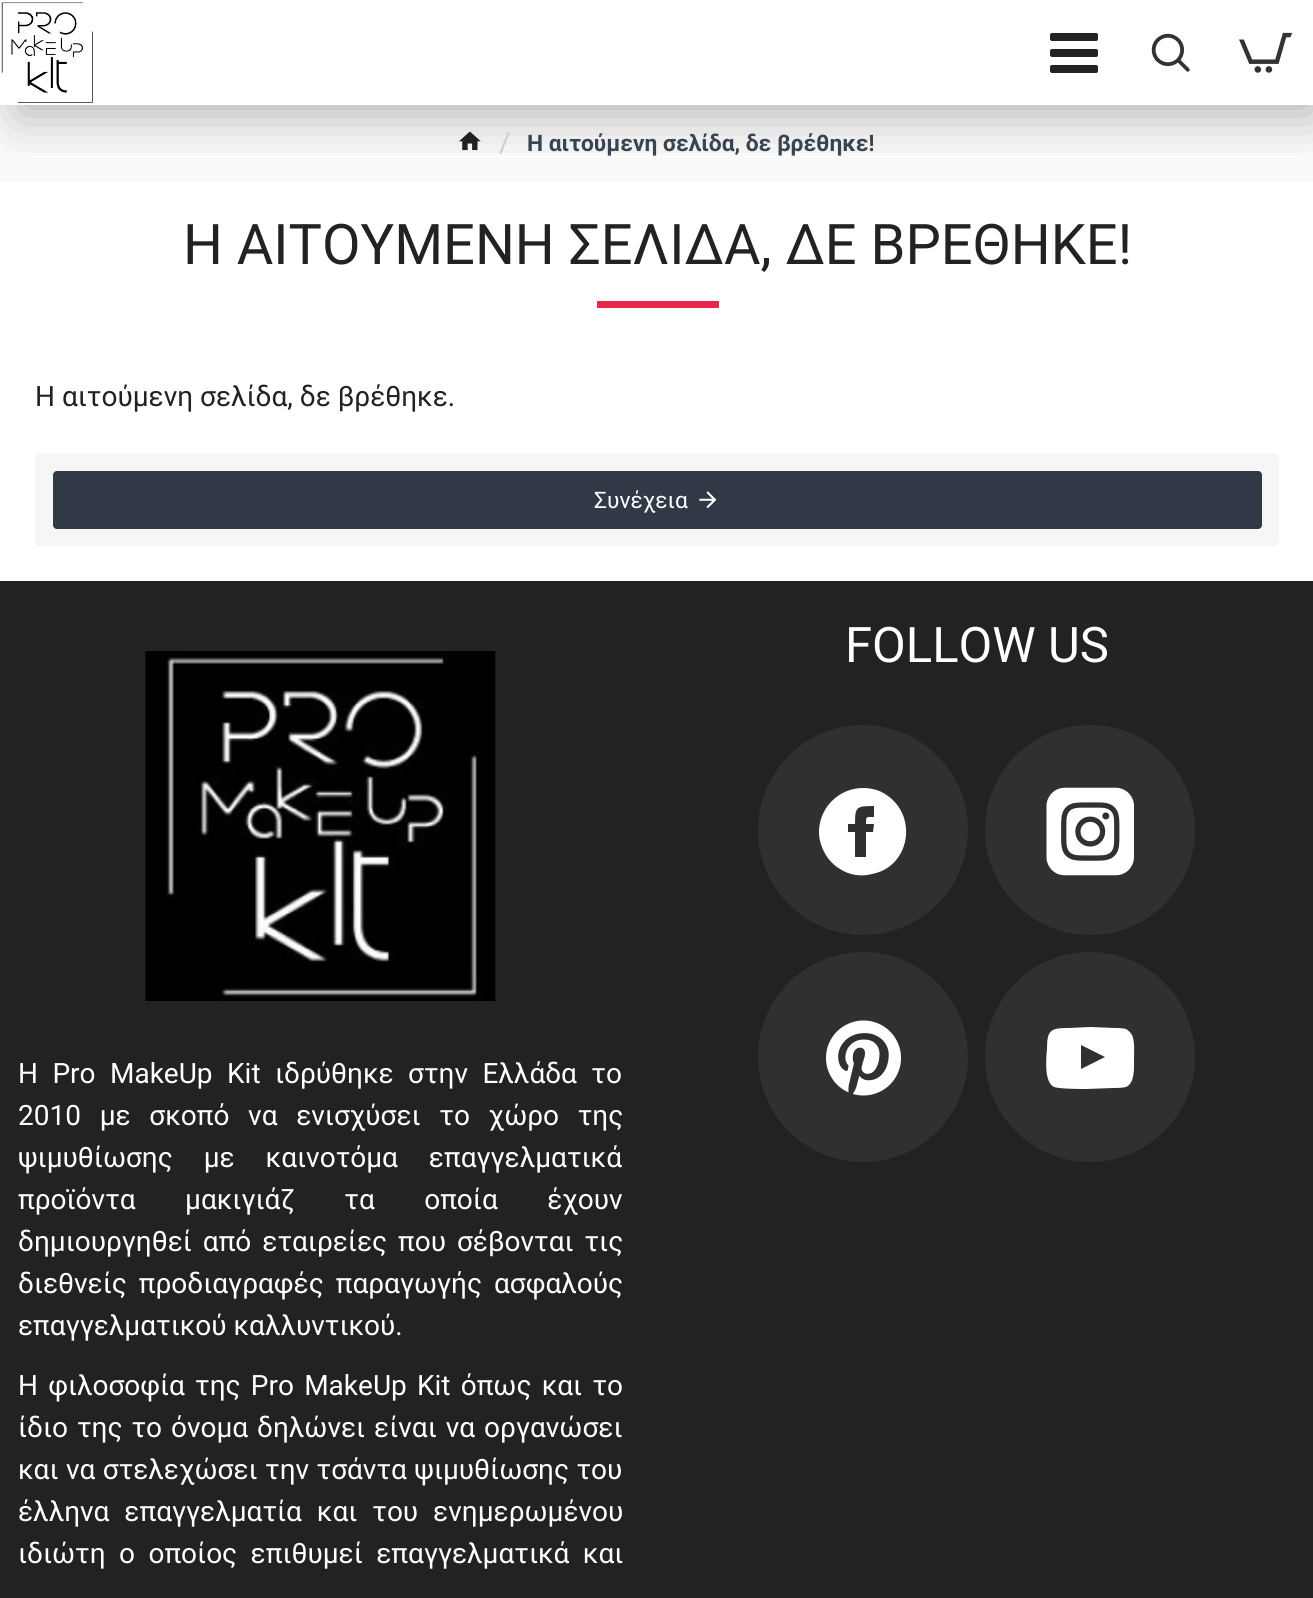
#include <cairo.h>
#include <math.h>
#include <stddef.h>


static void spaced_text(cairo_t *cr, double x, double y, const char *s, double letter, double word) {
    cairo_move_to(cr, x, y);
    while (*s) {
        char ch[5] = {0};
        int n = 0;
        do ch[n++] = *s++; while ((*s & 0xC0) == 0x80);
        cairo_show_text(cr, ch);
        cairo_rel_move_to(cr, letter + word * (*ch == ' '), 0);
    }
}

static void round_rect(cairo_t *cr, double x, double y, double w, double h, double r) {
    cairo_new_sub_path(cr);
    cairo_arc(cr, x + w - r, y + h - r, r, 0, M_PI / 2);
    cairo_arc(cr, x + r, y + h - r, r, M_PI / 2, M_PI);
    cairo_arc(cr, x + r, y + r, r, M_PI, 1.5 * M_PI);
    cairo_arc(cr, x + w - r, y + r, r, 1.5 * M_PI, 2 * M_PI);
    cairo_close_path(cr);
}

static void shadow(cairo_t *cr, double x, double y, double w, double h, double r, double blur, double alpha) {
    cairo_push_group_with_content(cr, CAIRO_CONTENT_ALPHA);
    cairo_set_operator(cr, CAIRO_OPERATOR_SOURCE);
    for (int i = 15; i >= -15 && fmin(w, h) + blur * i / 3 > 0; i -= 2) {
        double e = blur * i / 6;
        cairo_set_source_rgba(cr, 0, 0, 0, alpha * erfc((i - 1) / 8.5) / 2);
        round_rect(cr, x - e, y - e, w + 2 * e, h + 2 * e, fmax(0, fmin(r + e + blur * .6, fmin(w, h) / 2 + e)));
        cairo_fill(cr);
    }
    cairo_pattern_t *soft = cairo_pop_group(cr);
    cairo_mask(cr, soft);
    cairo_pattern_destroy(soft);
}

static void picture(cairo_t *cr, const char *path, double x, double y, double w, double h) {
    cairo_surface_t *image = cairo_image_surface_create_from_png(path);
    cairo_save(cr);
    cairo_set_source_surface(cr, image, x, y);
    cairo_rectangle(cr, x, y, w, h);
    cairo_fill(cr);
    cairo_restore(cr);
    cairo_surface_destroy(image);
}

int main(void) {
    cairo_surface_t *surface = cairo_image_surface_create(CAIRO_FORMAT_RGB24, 1313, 1598);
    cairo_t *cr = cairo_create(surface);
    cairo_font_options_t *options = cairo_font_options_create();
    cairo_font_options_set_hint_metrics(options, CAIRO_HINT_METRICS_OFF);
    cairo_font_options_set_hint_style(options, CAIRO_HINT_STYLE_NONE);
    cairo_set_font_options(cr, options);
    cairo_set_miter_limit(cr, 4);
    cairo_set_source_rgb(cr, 1, 1, 1);
    cairo_paint(cr);
    cairo_set_source_rgb(cr, 0.98, 0.98, 0.98);
    cairo_rectangle(cr, 0, 105, 1313, 77);
    cairo_fill(cr);
    picture(cr, "img5.png", 459, 131, 22, 20);
    cairo_save(cr);
    cairo_rectangle(cr, 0, 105, 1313, 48);
    cairo_clip(cr);
    cairo_set_source_rgb(cr, 0, 0, 0);
    shadow(cr, 18, 26, 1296, 88, 0, 26, 0.3);
    cairo_restore(cr);
    picture(cr, "img1.png", 1, 2, 92, 101);
    picture(cr, "img2.png", 1050, 33, 48, 40);
    picture(cr, "img3.png", 1151, 33, 39, 39);
    picture(cr, "img4.png", 1239, 32, 53, 41);
    cairo_select_font_face(cr, "Roboto", CAIRO_FONT_SLANT_NORMAL, CAIRO_FONT_WEIGHT_NORMAL);
    cairo_set_font_size(cr, 28);
    cairo_set_source_rgb(cr, 0.8, 0.8, 0.8);
    cairo_move_to(cr, 499, 152);
    cairo_show_text(cr, "/");
    cairo_select_font_face(cr, "Roboto", CAIRO_FONT_SLANT_NORMAL, CAIRO_FONT_WEIGHT_BOLD);
    cairo_set_font_size(cr, 22.75);
    cairo_set_source_rgb(cr, 0.22, 0.267, 0.31);
    cairo_move_to(cr, 527, 151);
    cairo_show_text(cr, "Η αιτούμενη σελίδα, δε βρέθηκε!");
    cairo_select_font_face(cr, "Roboto", CAIRO_FONT_SLANT_NORMAL, CAIRO_FONT_WEIGHT_NORMAL);
    cairo_set_font_size(cr, 56);
    cairo_set_source_rgb(cr, 0.133, 0.133, 0.133);
    cairo_move_to(cr, 183, 264);
    cairo_show_text(cr, "Η ΑΙΤΟΥΜΕΝΗ ΣΕΛΙΔΑ, ΔΕ ΒΡΕΘΗΚΕ!");
    cairo_set_source_rgb(cr, 0.906, 0.157, 0.302);
    cairo_rectangle(cr, 597, 301, 122, 7);
    cairo_fill(cr);
    cairo_set_font_size(cr, 28);
    cairo_set_source_rgb(cr, 0.133, 0.133, 0.133);
    cairo_move_to(cr, 35, 406);
    cairo_show_text(cr, "Η αιτούμενη σελίδα, δε βρέθηκε.");
    cairo_set_source_rgb(cr, 0.961, 0.961, 0.961);
    round_rect(cr, 35, 453, 1244, 93, 5);
    cairo_fill(cr);
    cairo_set_source_rgb(cr, 0.192, 0.22, 0.275);
    round_rect(cr, 53, 471, 1209, 58, 4);
    cairo_fill(cr);
    cairo_set_font_size(cr, 22.75);
    cairo_set_source_rgb(cr, 1, 1, 1);
    cairo_move_to(cr, 594, 508);
    cairo_show_text(cr, "Συνέχεια");
    picture(cr, "img6.png", 699, 491, 18, 18);
    cairo_set_source_rgb(cr, 0.133, 0.133, 0.133);
    cairo_rectangle(cr, 0, 581, 1313, 1017);
    cairo_fill(cr);
    cairo_set_font_size(cr, 49);
    cairo_set_source_rgb(cr, 1, 1, 1);
    cairo_move_to(cr, 845, 662);
    cairo_show_text(cr, "FOLLOW US");
    cairo_set_source_rgb(cr, 0.188, 0.188, 0.188);
    cairo_new_path(cr);
    cairo_arc(cr, 863, 830, 105, 0, 2 * M_PI);
    cairo_fill(cr);
    cairo_set_source_rgb(cr, 1, 1, 1);
    cairo_new_path(cr);
    cairo_move_to(cr, 863, 788);
    cairo_curve_to(cr, 838, 788, 818, 809, 819, 834);
    cairo_curve_to(cr, 820, 848, 828, 862, 840, 869);
    cairo_curve_to(cr, 849, 875, 861, 877, 872, 874);
    cairo_curve_to(cr, 910, 867, 919, 815, 885, 794);
    cairo_curve_to(cr, 879, 790, 871, 788, 863, 788);
    cairo_close_path(cr);
    cairo_move_to(cr, 874, 817);
    cairo_curve_to(cr, 866, 817, 866, 816, 866, 824);
    cairo_line_to(cr, 874, 824);
    cairo_line_to(cr, 873, 832);
    cairo_line_to(cr, 866, 832);
    cairo_line_to(cr, 866, 857);
    cairo_line_to(cr, 855, 857);
    cairo_line_to(cr, 855, 832);
    cairo_line_to(cr, 848, 832);
    cairo_line_to(cr, 848, 824);
    cairo_line_to(cr, 855, 824);
    cairo_curve_to(cr, 855, 807, 856, 806, 874, 806);
    cairo_close_path(cr);
    cairo_fill(cr);
    cairo_set_source_rgb(cr, 0.188, 0.188, 0.188);
    cairo_arc(cr, 1090, 830, 105, 0, 2 * M_PI);
    cairo_fill(cr);
    picture(cr, "img7.png", 1046, 787, 88, 89);
    cairo_arc(cr, 863, 1057, 105, 0, 2 * M_PI);
    cairo_fill(cr);
    picture(cr, "img8.png", 826, 1020, 75, 76);
    cairo_arc(cr, 1090, 1057, 105, 0, 2 * M_PI);
    cairo_fill(cr);
    cairo_set_source_rgb(cr, 1, 1, 1);
    cairo_new_path(cr);
    cairo_move_to(cr, 1081, 1069);
    cairo_line_to(cr, 1105, 1057);
    cairo_line_to(cr, 1081, 1045);
    cairo_close_path(cr);
    cairo_move_to(cr, 1090, 1027);
    cairo_line_to(cr, 1114, 1028);
    cairo_curve_to(cr, 1118, 1028, 1122, 1028, 1126, 1029);
    cairo_curve_to(cr, 1128, 1030, 1131, 1033, 1132, 1035);
    cairo_curve_to(cr, 1135, 1042, 1134, 1052, 1134, 1060);
    cairo_curve_to(cr, 1134, 1068, 1135, 1083, 1126, 1087);
    cairo_curve_to(cr, 1122, 1088, 1117, 1088, 1113, 1088);
    cairo_line_to(cr, 1086, 1089);
    cairo_curve_to(cr, 1081, 1089, 1060, 1089, 1054, 1087);
    cairo_curve_to(cr, 1044, 1082, 1046, 1059, 1047, 1049);
    cairo_curve_to(cr, 1047, 1031, 1050, 1028, 1067, 1028);
    cairo_close_path(cr);
    cairo_fill(cr);
    picture(cr, "img9.png", 145, 651, 351, 350);
    cairo_set_font_size(cr, 28);
    spaced_text(cr, 18, 1083, "H Pro MakeUp Kit ιδρύθηκε στην Ελλάδα το", 0, 7.5);
    spaced_text(cr, 18, 1125, "2010 με σκοπό να ενισχύσει το χώρο της", 0, 11.75);
    spaced_text(cr, 18, 1167, "ψιμυθίωσης με καινοτόμα επαγγελματικά", 0, 24);
    spaced_text(cr, 18, 1209, "προϊόντα μακιγιάζ τα οποία έχουν", 0, 42.5);
    spaced_text(cr, 18, 1251, "δημιουργηθεί από εταιρείες που σέβονται τις", 0, 4);
    spaced_text(cr, 18, 1293, "διεθνείς προδιαγραφές παραγωγής ασφαλούς", 0, 5);
    cairo_move_to(cr, 18, 1335);
    cairo_show_text(cr, "επαγγελματικού καλλυντικού.");
    spaced_text(cr, 18, 1395, "Η φιλοσοφία της Pro MakeUp Kit όπως και το", 0, 3.25);
    spaced_text(cr, 18, 1437, "ίδιο της το όνομα δηλώνει είναι να οργανώσει", 0, 2);
    spaced_text(cr, 18, 1479, "και να στελεχώσει την τσάντα ψιμυθίωσης του", 0, 0.5);
    spaced_text(cr, 18, 1521, "έλληνα επαγγελματία και του ενημερωμένου", 0, 8);
    spaced_text(cr, 18, 1563, "ιδιώτη ο οποίος επιθυμεί επαγγελματικά και", 0, 6.5);
    cairo_surface_write_to_png(surface, "page.png");
    cairo_font_options_destroy(options);
    cairo_destroy(cr);
    cairo_surface_destroy(surface);
    return 0;
}
